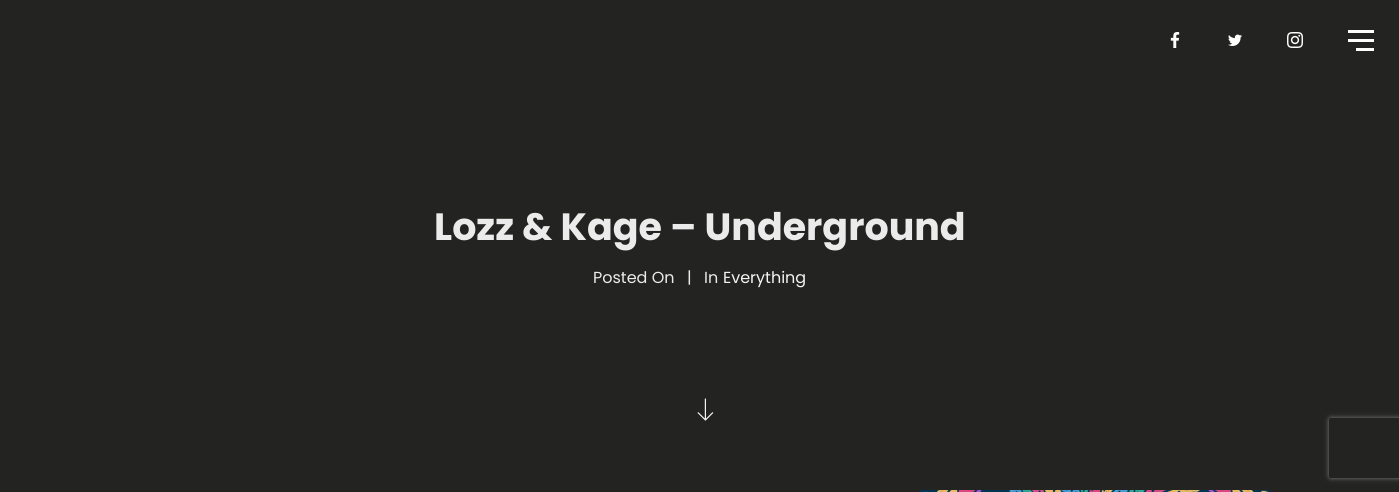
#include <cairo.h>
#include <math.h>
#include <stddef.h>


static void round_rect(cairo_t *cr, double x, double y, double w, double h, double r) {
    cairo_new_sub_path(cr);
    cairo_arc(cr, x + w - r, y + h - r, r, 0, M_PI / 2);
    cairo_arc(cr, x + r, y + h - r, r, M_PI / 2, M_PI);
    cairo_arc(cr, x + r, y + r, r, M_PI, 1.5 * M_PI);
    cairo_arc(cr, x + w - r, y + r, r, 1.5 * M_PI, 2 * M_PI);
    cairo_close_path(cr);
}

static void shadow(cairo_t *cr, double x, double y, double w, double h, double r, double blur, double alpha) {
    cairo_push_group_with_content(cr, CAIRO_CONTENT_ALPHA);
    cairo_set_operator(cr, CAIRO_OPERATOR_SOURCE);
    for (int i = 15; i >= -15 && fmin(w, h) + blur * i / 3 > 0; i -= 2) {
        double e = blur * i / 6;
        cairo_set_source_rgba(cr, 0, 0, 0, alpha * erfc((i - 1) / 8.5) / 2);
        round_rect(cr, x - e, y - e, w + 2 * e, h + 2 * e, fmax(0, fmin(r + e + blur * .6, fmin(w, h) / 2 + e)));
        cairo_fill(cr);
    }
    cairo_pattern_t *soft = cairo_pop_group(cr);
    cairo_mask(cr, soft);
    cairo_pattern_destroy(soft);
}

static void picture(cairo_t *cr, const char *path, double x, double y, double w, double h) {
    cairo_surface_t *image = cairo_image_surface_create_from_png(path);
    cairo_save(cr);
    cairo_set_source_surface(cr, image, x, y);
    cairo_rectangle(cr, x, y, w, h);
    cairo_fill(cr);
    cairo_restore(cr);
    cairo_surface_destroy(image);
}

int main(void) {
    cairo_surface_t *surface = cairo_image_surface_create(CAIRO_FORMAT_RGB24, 1399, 492);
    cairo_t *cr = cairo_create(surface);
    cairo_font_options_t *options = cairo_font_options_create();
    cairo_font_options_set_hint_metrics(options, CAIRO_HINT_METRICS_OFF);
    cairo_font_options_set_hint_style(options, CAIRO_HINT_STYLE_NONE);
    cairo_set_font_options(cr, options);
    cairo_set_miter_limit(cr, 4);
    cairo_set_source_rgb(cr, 0.137, 0.137, 0.133);
    cairo_paint(cr);
    picture(cr, "img1.png", 1170, 32, 10, 16);
    picture(cr, "img2.png", 1228, 34, 14, 12);
    picture(cr, "img3.png", 1287, 32, 16, 16);
    cairo_set_source_rgb(cr, 1, 1, 1);
    cairo_rectangle(cr, 1348, 30, 26, 3);
    cairo_fill(cr);
    cairo_rectangle(cr, 1348, 39, 26, 3);
    cairo_fill(cr);
    cairo_rectangle(cr, 1356, 48, 18, 3);
    cairo_fill(cr);
    cairo_select_font_face(cr, "Poppins", CAIRO_FONT_SLANT_NORMAL, CAIRO_FONT_WEIGHT_BOLD);
    cairo_set_font_size(cr, 38);
    cairo_set_source_rgb(cr, 0.918, 0.918, 0.918);
    cairo_move_to(cr, 434, 240);
    cairo_show_text(cr, "Lozz & Kage – Underground");
    cairo_select_font_face(cr, "Poppins", CAIRO_FONT_SLANT_NORMAL, CAIRO_FONT_WEIGHT_NORMAL);
    cairo_set_font_size(cr, 16);
    cairo_move_to(cr, 593, 283);
    cairo_show_text(cr, "Posted On");
    cairo_move_to(cr, 687, 283);
    cairo_show_text(cr, "|");
    cairo_move_to(cr, 704, 283);
    cairo_show_text(cr, "In");
    cairo_set_source_rgb(cr, 0.957, 0.957, 0.957);
    cairo_move_to(cr, 723, 283);
    cairo_show_text(cr, "Everything");
    picture(cr, "img4.png", 697, 398, 17, 23);
    picture(cr, "img5.png", 920, 490, 350, 2);
    cairo_save(cr);
    cairo_set_fill_rule(cr, CAIRO_FILL_RULE_EVEN_ODD);
    cairo_new_path(cr);
    cairo_move_to(cr, 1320, 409);
    cairo_line_to(cr, 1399, 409);
    cairo_line_to(cr, 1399, 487);
    cairo_line_to(cr, 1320, 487);
    cairo_close_path(cr);
    cairo_move_to(cr, 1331, 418);
    cairo_line_to(cr, 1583, 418);
    cairo_curve_to(cr, 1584, 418, 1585, 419, 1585, 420);
    cairo_line_to(cr, 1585, 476);
    cairo_curve_to(cr, 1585, 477, 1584, 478, 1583, 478);
    cairo_line_to(cr, 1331, 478);
    cairo_curve_to(cr, 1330, 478, 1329, 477, 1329, 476);
    cairo_line_to(cr, 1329, 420);
    cairo_curve_to(cr, 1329, 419, 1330, 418, 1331, 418);
    cairo_close_path(cr);
    cairo_clip(cr);
    cairo_set_source_rgb(cr, 0.502, 0.502, 0.502);
    shadow(cr, 1329, 418, 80, 60, 2, 2.5, 1);
    cairo_restore(cr);
    cairo_surface_write_to_png(surface, "page.png");
    cairo_font_options_destroy(options);
    cairo_destroy(cr);
    cairo_surface_destroy(surface);
    return 0;
}
